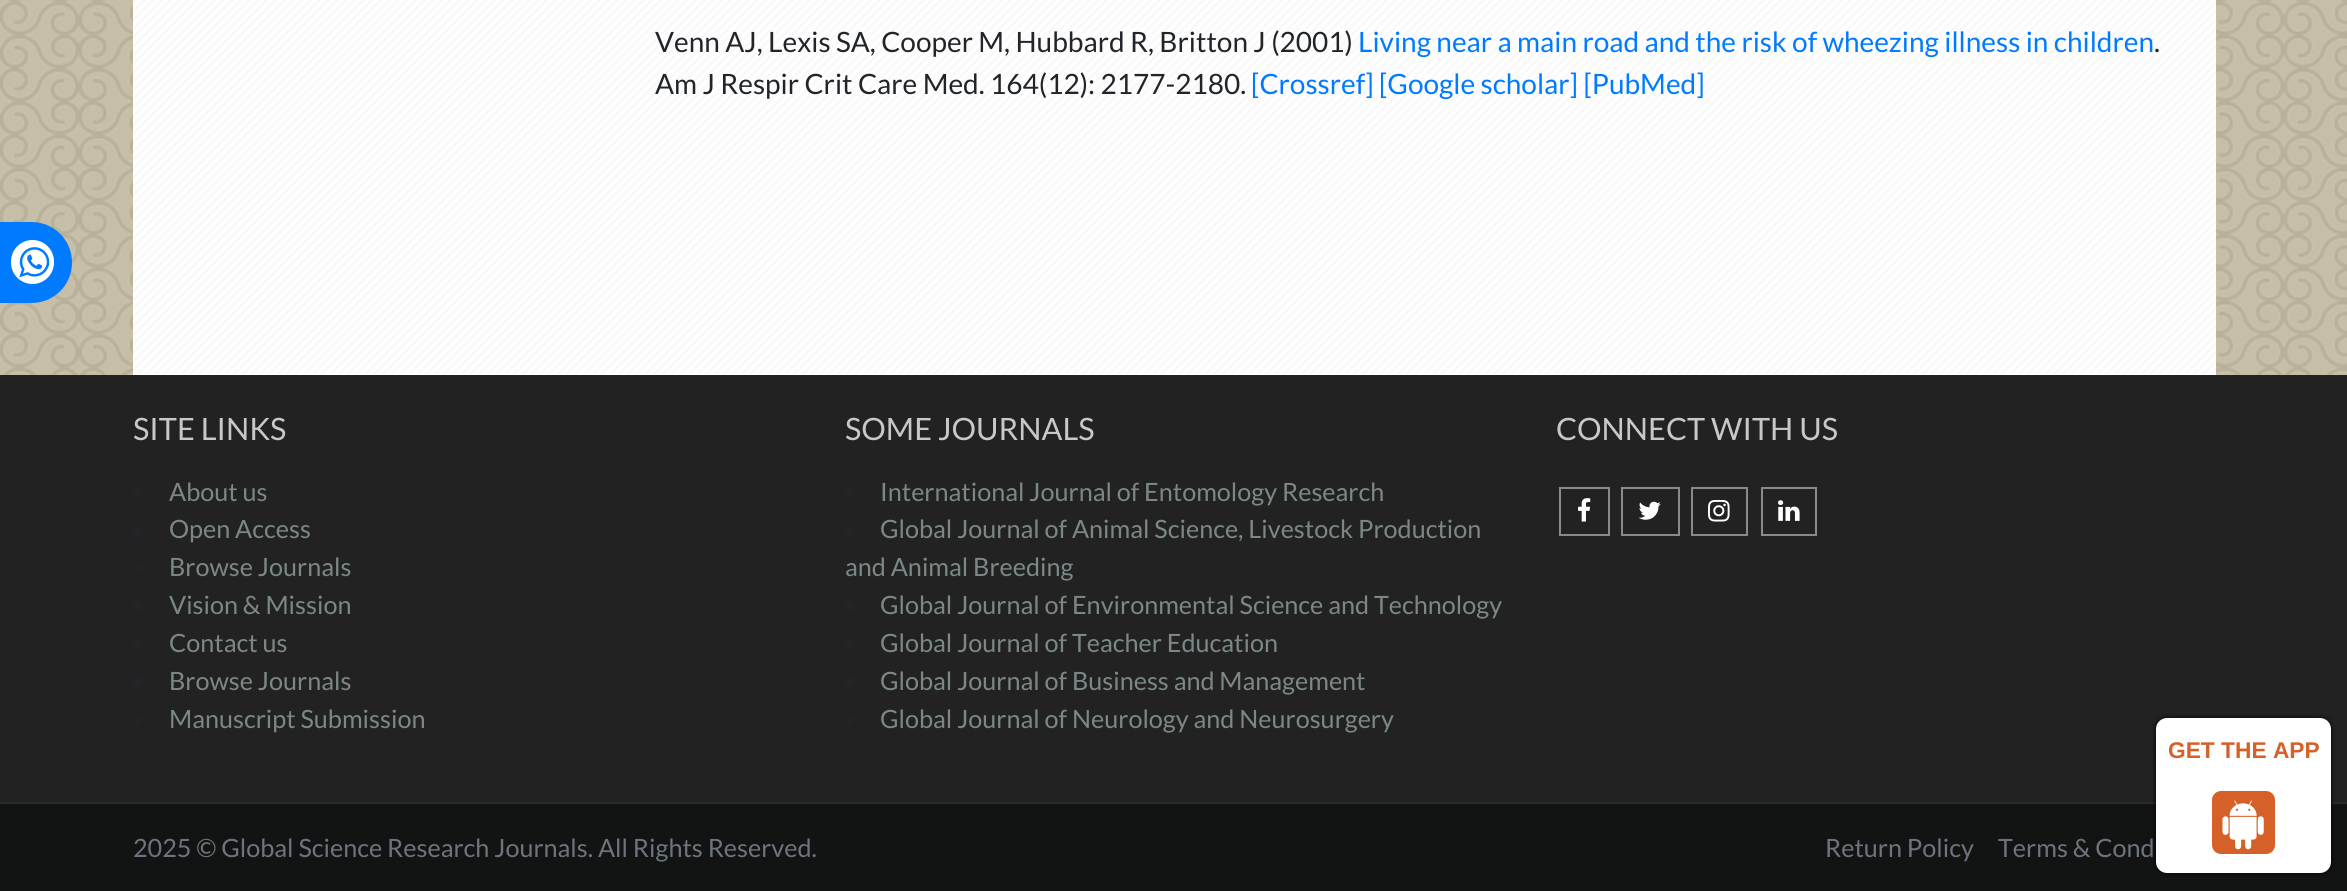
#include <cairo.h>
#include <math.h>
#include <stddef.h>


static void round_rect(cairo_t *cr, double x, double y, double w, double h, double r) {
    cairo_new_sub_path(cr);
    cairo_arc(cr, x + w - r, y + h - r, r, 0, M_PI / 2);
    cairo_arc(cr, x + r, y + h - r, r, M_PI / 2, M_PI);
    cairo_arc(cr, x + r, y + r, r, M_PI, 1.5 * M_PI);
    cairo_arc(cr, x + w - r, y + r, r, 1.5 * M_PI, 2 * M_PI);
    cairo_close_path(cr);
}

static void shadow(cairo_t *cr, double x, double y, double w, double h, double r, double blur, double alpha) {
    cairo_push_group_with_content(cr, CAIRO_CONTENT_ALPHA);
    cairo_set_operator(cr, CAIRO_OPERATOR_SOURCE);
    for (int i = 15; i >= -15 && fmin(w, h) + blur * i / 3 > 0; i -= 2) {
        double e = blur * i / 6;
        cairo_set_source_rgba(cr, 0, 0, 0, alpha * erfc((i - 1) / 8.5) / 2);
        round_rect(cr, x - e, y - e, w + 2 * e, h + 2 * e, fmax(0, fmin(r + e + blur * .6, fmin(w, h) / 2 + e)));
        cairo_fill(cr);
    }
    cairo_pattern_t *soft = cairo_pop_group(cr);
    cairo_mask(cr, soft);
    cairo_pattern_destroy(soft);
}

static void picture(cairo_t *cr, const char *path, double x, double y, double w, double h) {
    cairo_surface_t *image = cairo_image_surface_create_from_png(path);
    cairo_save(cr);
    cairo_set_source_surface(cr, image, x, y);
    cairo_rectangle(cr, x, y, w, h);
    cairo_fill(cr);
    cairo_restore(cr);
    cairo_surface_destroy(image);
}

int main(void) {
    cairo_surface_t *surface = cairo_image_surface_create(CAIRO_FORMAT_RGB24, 2347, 891);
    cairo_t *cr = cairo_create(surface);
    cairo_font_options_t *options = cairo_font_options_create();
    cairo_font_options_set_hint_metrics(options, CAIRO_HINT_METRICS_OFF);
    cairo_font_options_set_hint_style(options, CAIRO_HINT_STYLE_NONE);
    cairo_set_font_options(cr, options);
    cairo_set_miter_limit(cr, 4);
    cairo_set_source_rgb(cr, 0.776, 0.745, 0.651);
    cairo_paint(cr);
    picture(cr, "img1.png", 0, 0, 2347, 375);
    cairo_set_source_rgb(cr, 1, 1, 1);
    cairo_rectangle(cr, 133, 0, 2083, 375);
    cairo_fill(cr);
    picture(cr, "img2.png", 133, 0, 2083, 375);
    cairo_select_font_face(cr, "Lato", CAIRO_FONT_SLANT_NORMAL, CAIRO_FONT_WEIGHT_NORMAL);
    cairo_set_font_size(cr, 28);
    cairo_set_source_rgb(cr, 0.129, 0.145, 0.161);
    cairo_move_to(cr, 655, 52);
    cairo_show_text(cr, "Venn AJ, Lexis SA, Cooper M, Hubbard R, Britton J (2001)");
    cairo_set_source_rgb(cr, 0, 0.482, 1);
    cairo_move_to(cr, 1358, 52);
    cairo_show_text(cr, "Living near a main road and the risk of wheezing illness in children");
    cairo_set_source_rgb(cr, 0.129, 0.145, 0.161);
    cairo_move_to(cr, 2154, 52);
    cairo_show_text(cr, ".");
    cairo_move_to(cr, 655, 94);
    cairo_show_text(cr, "Am J Respir Crit Care Med. 164(12): 2177-2180.");
    cairo_set_source_rgb(cr, 0, 0.482, 1);
    cairo_move_to(cr, 1251, 94);
    cairo_show_text(cr, "[Crossref] [Google scholar] [PubMed]");
    cairo_new_path(cr);
    cairo_move_to(cr, -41, 222);
    cairo_line_to(cr, 31.5, 222);
    cairo_curve_to(cr, 54, 222, 72, 240, 72, 262.5);
    cairo_curve_to(cr, 72, 285, 54, 303, 31.5, 303);
    cairo_line_to(cr, -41, 303);
    cairo_close_path(cr);
    cairo_fill(cr);
    cairo_set_source_rgb(cr, 1, 1, 1);
    round_rect(cr, 11, 240, 43, 44, 21.5);
    cairo_fill(cr);
    picture(cr, "img3.png", 19, 247, 31, 31);
    cairo_set_source_rgb(cr, 0.133, 0.133, 0.133);
    cairo_rectangle(cr, 0, 375, 2347, 427);
    cairo_fill(cr);
    cairo_set_font_size(cr, 30.75);
    cairo_set_source_rgb(cr, 0.784, 0.784, 0.784);
    cairo_move_to(cr, 133, 440);
    cairo_show_text(cr, "SITE LINKS");
    cairo_set_source_rgb(cr, 0.129, 0.145, 0.161);
    cairo_new_path(cr);
    cairo_arc(cr, 137.5, 492.5, 4.5, 0, 2 * M_PI);
    cairo_fill(cr);
    cairo_set_font_size(cr, 25.2);
    cairo_set_source_rgb(cr, 0.482, 0.533, 0.529);
    cairo_move_to(cr, 169, 501);
    cairo_show_text(cr, "About us");
    cairo_set_source_rgb(cr, 0.129, 0.145, 0.161);
    cairo_new_path(cr);
    cairo_arc(cr, 137.5, 531.5, 4.5, 0, 2 * M_PI);
    cairo_fill(cr);
    cairo_set_source_rgb(cr, 0.482, 0.533, 0.529);
    cairo_move_to(cr, 169, 538);
    cairo_show_text(cr, "Open Access");
    cairo_set_source_rgb(cr, 0.129, 0.145, 0.161);
    round_rect(cr, 133, 564, 9, 8, 4);
    cairo_fill(cr);
    cairo_set_source_rgb(cr, 0.482, 0.533, 0.529);
    cairo_move_to(cr, 169, 576);
    cairo_show_text(cr, "Browse Journals");
    cairo_set_source_rgb(cr, 0.129, 0.145, 0.161);
    cairo_new_path(cr);
    cairo_arc(cr, 137.5, 606.5, 4.5, 0, 2 * M_PI);
    cairo_fill(cr);
    cairo_set_source_rgb(cr, 0.482, 0.533, 0.529);
    cairo_move_to(cr, 169, 614);
    cairo_show_text(cr, "Vision & Mission");
    cairo_set_source_rgb(cr, 0.129, 0.145, 0.161);
    round_rect(cr, 133, 641, 9, 8, 4);
    cairo_fill(cr);
    cairo_set_source_rgb(cr, 0.482, 0.533, 0.529);
    cairo_move_to(cr, 169, 652);
    cairo_show_text(cr, "Contact us");
    cairo_set_source_rgb(cr, 0.129, 0.145, 0.161);
    cairo_new_path(cr);
    cairo_arc(cr, 137.5, 681.5, 4.5, 0, 2 * M_PI);
    cairo_fill(cr);
    cairo_set_source_rgb(cr, 0.482, 0.533, 0.529);
    cairo_move_to(cr, 169, 690);
    cairo_show_text(cr, "Browse Journals");
    cairo_set_source_rgb(cr, 0.129, 0.145, 0.161);
    cairo_new_path(cr);
    cairo_arc(cr, 137.5, 720.5, 4.5, 0, 2 * M_PI);
    cairo_fill(cr);
    cairo_set_source_rgb(cr, 0.482, 0.533, 0.529);
    cairo_move_to(cr, 169, 728);
    cairo_show_text(cr, "Manuscript Submission");
    cairo_set_font_size(cr, 30.75);
    cairo_set_source_rgb(cr, 0.784, 0.784, 0.784);
    cairo_move_to(cr, 845, 440);
    cairo_show_text(cr, "SOME JOURNALS");
    cairo_set_source_rgb(cr, 0.129, 0.145, 0.161);
    cairo_new_path(cr);
    cairo_arc(cr, 849.5, 492.5, 4.5, 0, 2 * M_PI);
    cairo_fill(cr);
    cairo_set_font_size(cr, 25.2);
    cairo_set_source_rgb(cr, 0.482, 0.533, 0.529);
    cairo_move_to(cr, 880, 501);
    cairo_show_text(cr, "International Journal of Entomology Research");
    cairo_set_source_rgb(cr, 0.129, 0.145, 0.161);
    cairo_new_path(cr);
    cairo_arc(cr, 849.5, 531.5, 4.5, 0, 2 * M_PI);
    cairo_fill(cr);
    cairo_set_source_rgb(cr, 0.482, 0.533, 0.529);
    cairo_move_to(cr, 880, 538);
    cairo_show_text(cr, "Global Journal of Animal Science, Livestock Production");
    cairo_move_to(cr, 845, 576);
    cairo_show_text(cr, "and Animal Breeding");
    cairo_set_source_rgb(cr, 0.129, 0.145, 0.161);
    cairo_new_path(cr);
    cairo_arc(cr, 849.5, 606.5, 4.5, 0, 2 * M_PI);
    cairo_fill(cr);
    cairo_set_source_rgb(cr, 0.482, 0.533, 0.529);
    cairo_move_to(cr, 880, 614);
    cairo_show_text(cr, "Global Journal of Environmental Science and Technology");
    cairo_set_source_rgb(cr, 0.129, 0.145, 0.161);
    round_rect(cr, 845, 641, 9, 8, 4);
    cairo_fill(cr);
    cairo_set_source_rgb(cr, 0.482, 0.533, 0.529);
    cairo_move_to(cr, 880, 652);
    cairo_show_text(cr, "Global Journal of Teacher Education");
    cairo_set_source_rgb(cr, 0.129, 0.145, 0.161);
    cairo_new_path(cr);
    cairo_arc(cr, 849.5, 681.5, 4.5, 0, 2 * M_PI);
    cairo_fill(cr);
    cairo_set_source_rgb(cr, 0.482, 0.533, 0.529);
    cairo_move_to(cr, 880, 690);
    cairo_show_text(cr, "Global Journal of Business and Management");
    cairo_set_source_rgb(cr, 0.129, 0.145, 0.161);
    cairo_new_path(cr);
    cairo_arc(cr, 849.5, 720.5, 4.5, 0, 2 * M_PI);
    cairo_fill(cr);
    cairo_set_source_rgb(cr, 0.482, 0.533, 0.529);
    cairo_move_to(cr, 880, 728);
    cairo_show_text(cr, "Global Journal of Neurology and Neurosurgery");
    cairo_set_font_size(cr, 30.75);
    cairo_set_source_rgb(cr, 0.784, 0.784, 0.784);
    cairo_move_to(cr, 1556, 440);
    cairo_show_text(cr, "CONNECT WITH US");
    cairo_rectangle(cr, 1560, 488, 49, 47);
    cairo_set_source_rgb(cr, 0.549, 0.537, 0.537);
    cairo_stroke(cr);
    picture(cr, "img4.png", 1578, 498, 13, 24);
    cairo_rectangle(cr, 1622, 488, 57, 47);
    cairo_stroke(cr);
    picture(cr, "img5.png", 1638, 501, 23, 19);
    cairo_rectangle(cr, 1692, 488, 55, 47);
    cairo_stroke(cr);
    picture(cr, "img6.png", 1708, 499, 22, 23);
    cairo_rectangle(cr, 1762, 488, 54, 47);
    cairo_stroke(cr);
    picture(cr, "img7.png", 1778, 500, 22, 21);
    cairo_set_source_rgb(cr, 0.071, 0.075, 0.075);
    cairo_rectangle(cr, 0, 804, 2347, 87);
    cairo_fill(cr);
    cairo_set_source_rgb(cr, 0.165, 0.165, 0.165);
    cairo_rectangle(cr, 0, 802, 2347, 2);
    cairo_fill(cr);
    cairo_set_font_size(cr, 25.2);
    cairo_set_source_rgb(cr, 0.424, 0.459, 0.49);
    cairo_move_to(cr, 133, 857);
    cairo_show_text(cr, "2025 © Global Science Research Journals. All Rights Reserved.");
    cairo_move_to(cr, 1825, 857);
    cairo_show_text(cr, "Return Policy");
    cairo_move_to(cr, 1998, 857);
    cairo_show_text(cr, "Terms & Cond");
    cairo_set_source_rgb(cr, 0, 0, 0);
    shadow(cr, 2156, 718, 175, 155, 11, 2.5, 1);
    cairo_set_source_rgb(cr, 1, 1, 1);
    round_rect(cr, 2157, 719, 173, 153, 10);
    cairo_fill_preserve(cr);
    cairo_stroke(cr);
    cairo_select_font_face(cr, "Liberation Sans", CAIRO_FONT_SLANT_NORMAL, CAIRO_FONT_WEIGHT_BOLD);
    cairo_set_font_size(cr, 22.75);
    cairo_set_source_rgb(cr, 0.835, 0.38, 0.161);
    cairo_move_to(cr, 2168, 758);
    cairo_show_text(cr, "GET THE APP");
    round_rect(cr, 2212, 791, 63, 63, 9);
    cairo_fill(cr);
    picture(cr, "img8.png", 2222, 800, 42, 50);
    cairo_surface_write_to_png(surface, "page.png");
    cairo_font_options_destroy(options);
    cairo_destroy(cr);
    cairo_surface_destroy(surface);
    return 0;
}
